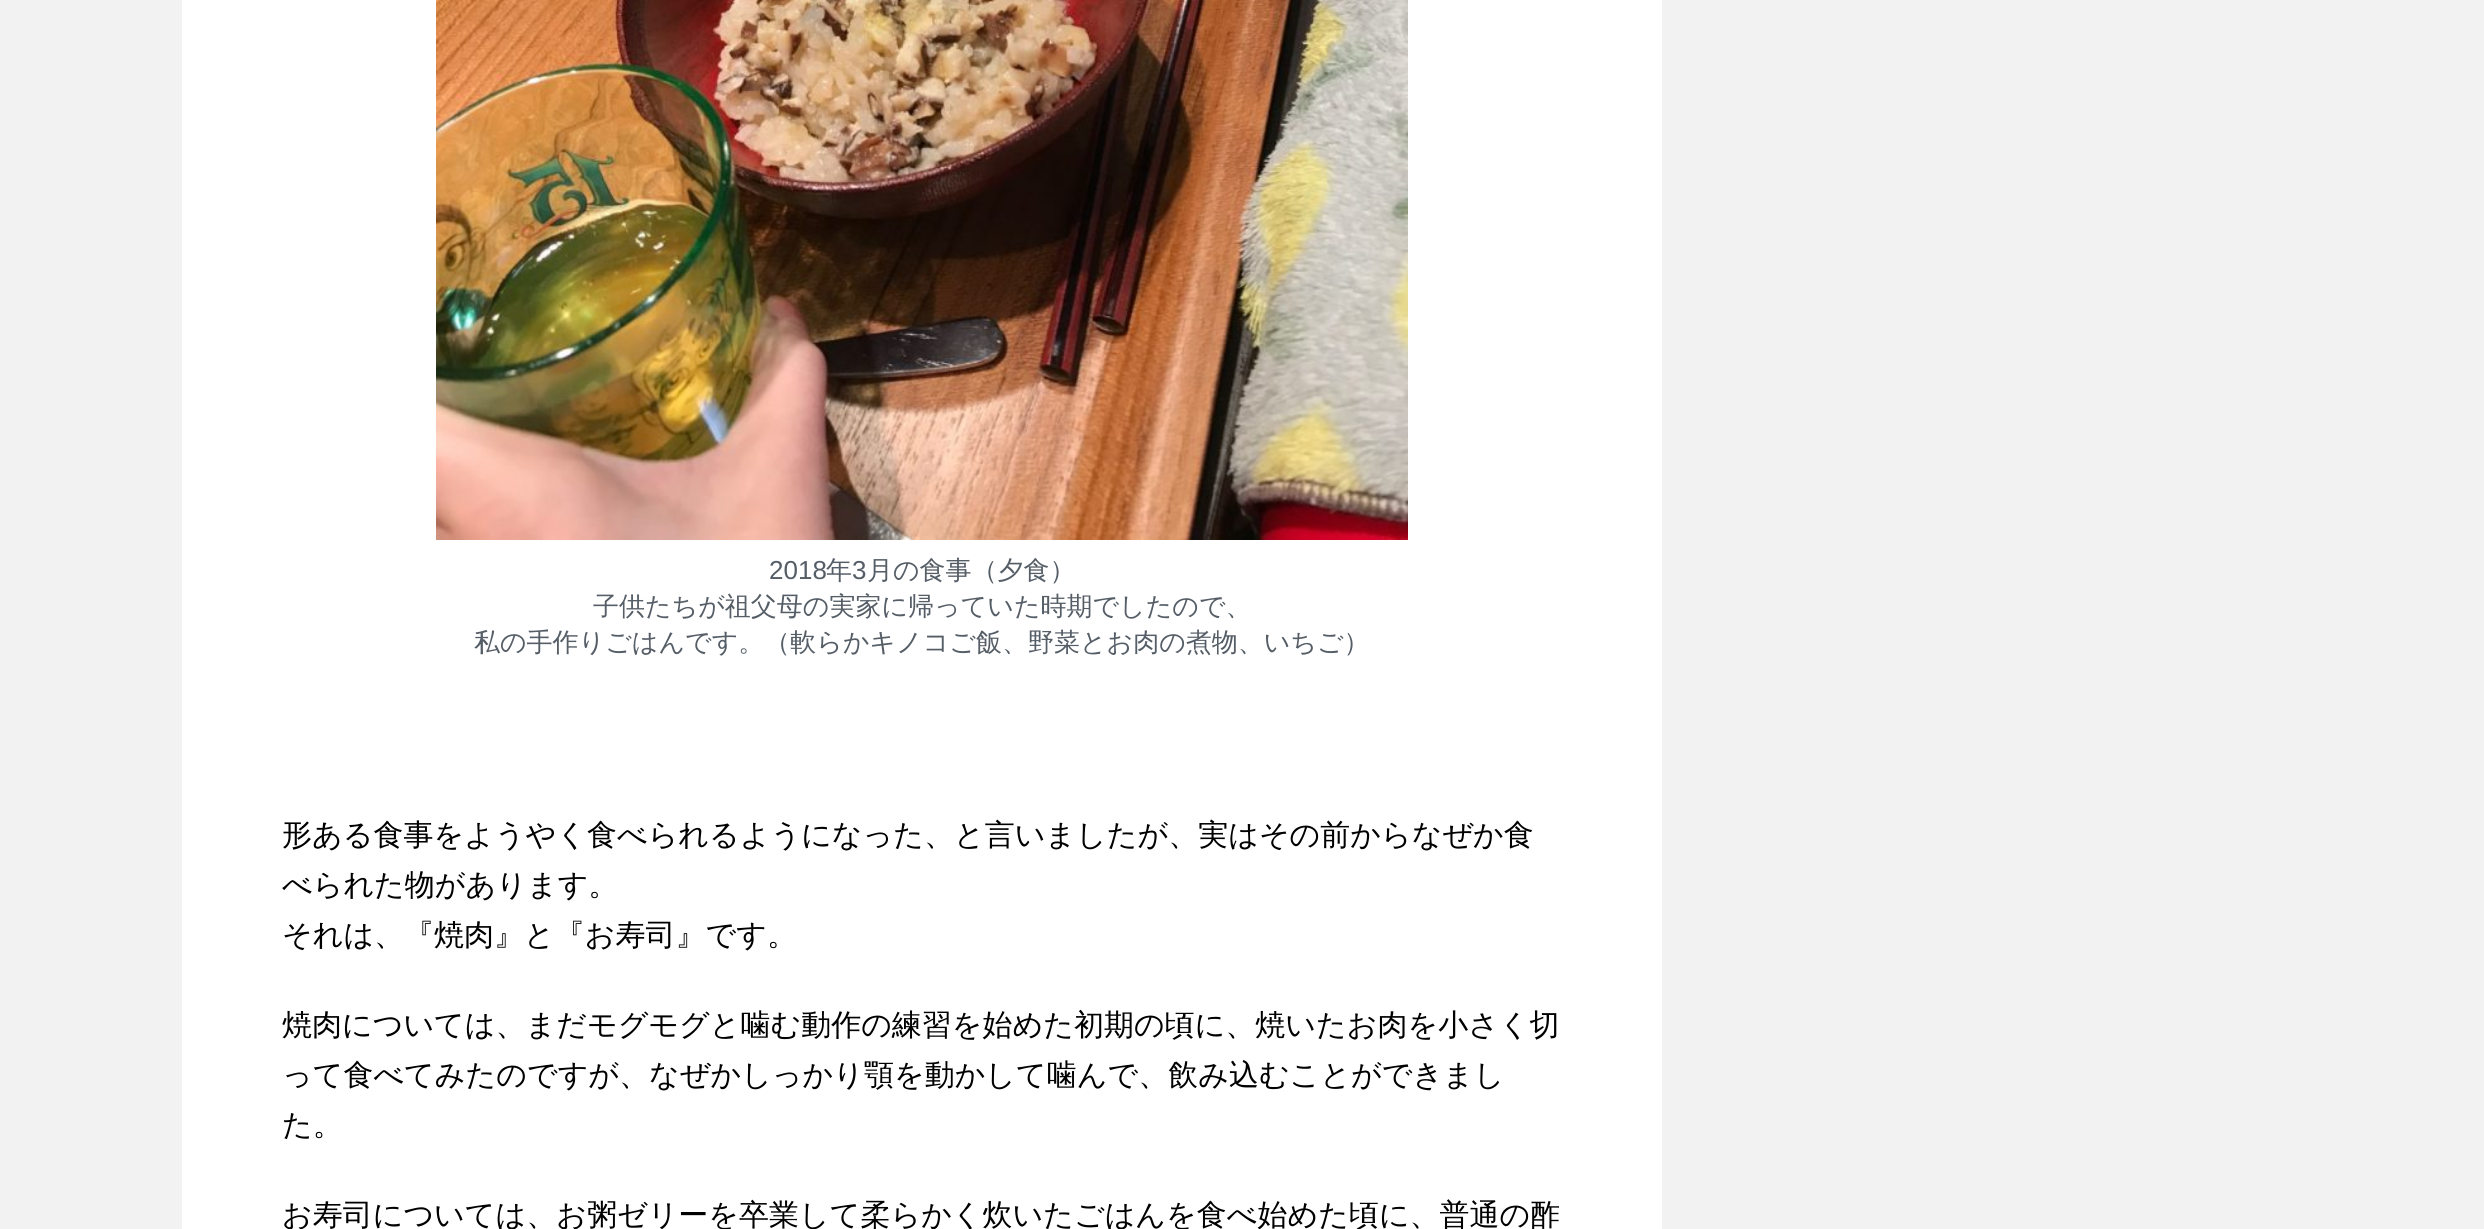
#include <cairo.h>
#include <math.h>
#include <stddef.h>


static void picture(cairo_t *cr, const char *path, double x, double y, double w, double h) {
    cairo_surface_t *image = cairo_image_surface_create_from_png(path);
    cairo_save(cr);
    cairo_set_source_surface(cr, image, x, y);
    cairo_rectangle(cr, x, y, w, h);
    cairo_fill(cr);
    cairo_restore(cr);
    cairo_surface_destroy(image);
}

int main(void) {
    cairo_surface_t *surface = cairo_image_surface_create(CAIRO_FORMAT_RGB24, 2484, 1229);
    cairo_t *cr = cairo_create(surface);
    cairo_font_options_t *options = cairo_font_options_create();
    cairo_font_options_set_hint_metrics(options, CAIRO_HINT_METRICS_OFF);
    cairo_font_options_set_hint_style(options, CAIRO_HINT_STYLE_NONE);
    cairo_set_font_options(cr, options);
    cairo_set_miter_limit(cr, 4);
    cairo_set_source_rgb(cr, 0.949, 0.949, 0.949);
    cairo_paint(cr);
    cairo_set_source_rgb(cr, 1, 1, 1);
    cairo_rectangle(cr, 182, 0, 1480, 1229);
    cairo_fill(cr);
    picture(cr, "img1.png", 436, 0, 972, 540);
    cairo_select_font_face(cr, "Liberation Sans", CAIRO_FONT_SLANT_NORMAL, CAIRO_FONT_WEIGHT_NORMAL);
    cairo_set_font_size(cr, 26);
    cairo_set_source_rgb(cr, 0.333, 0.365, 0.4);
    cairo_move_to(cr, 769, 579);
    cairo_show_text(cr, "2018");
    cairo_select_font_face(cr, "WenQuanYi Zen Hei Medium", CAIRO_FONT_SLANT_NORMAL, CAIRO_FONT_WEIGHT_NORMAL);
    cairo_move_to(cr, 826, 579);
    cairo_show_text(cr, "年");
    cairo_select_font_face(cr, "Liberation Sans", CAIRO_FONT_SLANT_NORMAL, CAIRO_FONT_WEIGHT_NORMAL);
    cairo_move_to(cr, 852, 579);
    cairo_show_text(cr, "3");
    cairo_select_font_face(cr, "WenQuanYi Zen Hei Medium", CAIRO_FONT_SLANT_NORMAL, CAIRO_FONT_WEIGHT_NORMAL);
    cairo_move_to(cr, 867, 579);
    cairo_show_text(cr, "月の食事（夕食）");
    cairo_move_to(cr, 593, 615);
    cairo_show_text(cr, "子供たちが祖父母の実家に帰っていた時期でしたので、");
    cairo_move_to(cr, 474, 651);
    cairo_show_text(cr, "私の手作りごはんです。（軟らかキノコご飯、野菜とお肉の煮物、いちご）");
    cairo_set_font_size(cr, 30);
    cairo_set_source_rgb(cr, 0, 0, 0);
    cairo_move_to(cr, 282, 845);
    cairo_show_text(cr, "形ある食事をようやく食べられるようになった、と言いましたが、実はその前からなぜか食");
    cairo_move_to(cr, 282, 895);
    cairo_show_text(cr, "べられた物があります。");
    cairo_move_to(cr, 282, 945);
    cairo_show_text(cr, "それは、『焼肉』と『お寿司』です。");
    cairo_move_to(cr, 282, 1035);
    cairo_show_text(cr, "焼肉については、まだモグモグと噛む動作の練習を始めた初期の頃に、焼いたお肉を小さく切");
    cairo_move_to(cr, 282, 1085);
    cairo_show_text(cr, "って食べてみたのですが、なぜかしっかり顎を動かして噛んで、飲み込むことができまし");
    cairo_move_to(cr, 282, 1135);
    cairo_show_text(cr, "た。");
    cairo_move_to(cr, 282, 1225);
    cairo_show_text(cr, "お寿司については、お粥ゼリーを卒業して柔らかく炊いたごはんを食べ始めた頃に、普通の酢");
    cairo_surface_write_to_png(surface, "page.png");
    cairo_font_options_destroy(options);
    cairo_destroy(cr);
    cairo_surface_destroy(surface);
    return 0;
}
